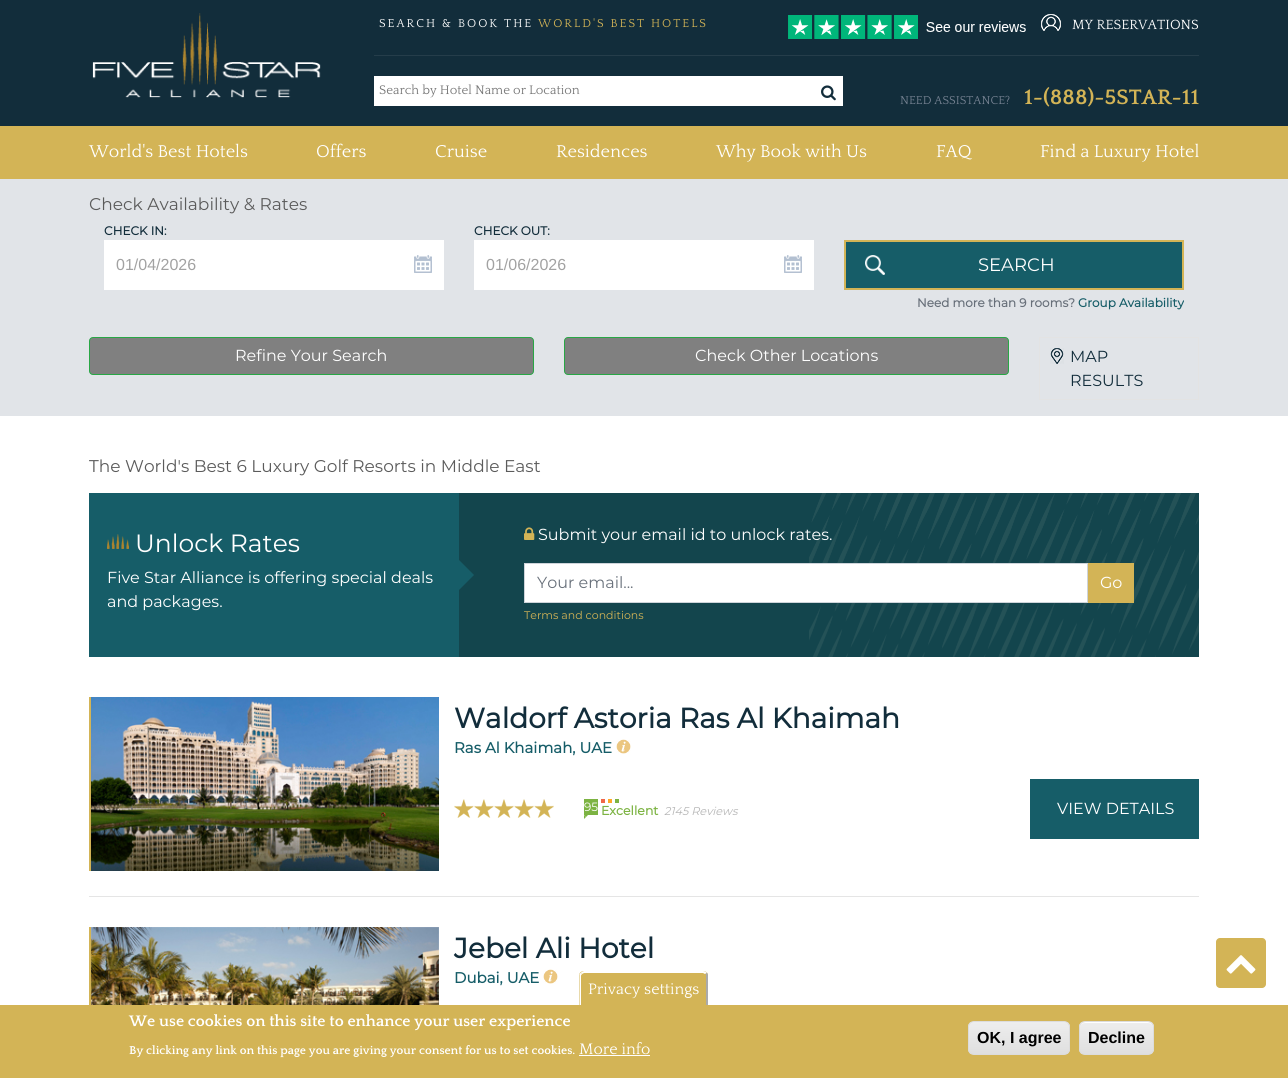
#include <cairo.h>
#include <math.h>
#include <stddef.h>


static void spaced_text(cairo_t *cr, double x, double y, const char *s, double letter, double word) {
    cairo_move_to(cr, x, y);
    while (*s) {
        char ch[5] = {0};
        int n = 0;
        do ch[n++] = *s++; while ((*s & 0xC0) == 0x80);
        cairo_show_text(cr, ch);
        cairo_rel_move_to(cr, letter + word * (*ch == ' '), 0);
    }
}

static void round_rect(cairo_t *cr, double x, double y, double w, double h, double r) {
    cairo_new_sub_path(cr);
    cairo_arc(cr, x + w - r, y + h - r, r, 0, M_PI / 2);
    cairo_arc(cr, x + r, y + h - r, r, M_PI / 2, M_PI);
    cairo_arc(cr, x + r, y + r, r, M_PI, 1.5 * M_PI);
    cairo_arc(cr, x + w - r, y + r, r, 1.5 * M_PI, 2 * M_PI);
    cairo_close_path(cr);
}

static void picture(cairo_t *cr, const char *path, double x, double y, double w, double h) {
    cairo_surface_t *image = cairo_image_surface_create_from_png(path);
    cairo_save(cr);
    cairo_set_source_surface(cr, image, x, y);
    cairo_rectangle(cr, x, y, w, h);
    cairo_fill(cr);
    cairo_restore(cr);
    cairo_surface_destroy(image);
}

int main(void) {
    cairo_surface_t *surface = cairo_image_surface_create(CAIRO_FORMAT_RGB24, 1288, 1078);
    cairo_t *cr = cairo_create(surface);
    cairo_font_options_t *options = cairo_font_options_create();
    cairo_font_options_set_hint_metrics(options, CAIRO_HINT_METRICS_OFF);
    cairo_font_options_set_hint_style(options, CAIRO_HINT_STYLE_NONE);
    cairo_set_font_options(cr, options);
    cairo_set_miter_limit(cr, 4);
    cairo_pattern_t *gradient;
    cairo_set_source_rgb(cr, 1, 1, 1);
    cairo_paint(cr);
    cairo_set_source_rgb(cr, 0.071, 0.176, 0.231);
    cairo_rectangle(cr, 0, 0, 1288, 126);
    cairo_fill(cr);
    picture(cr, "img1.png", 92, 13, 229, 85);
    cairo_set_source_rgb(cr, 0.145, 0.239, 0.29);
    cairo_rectangle(cr, 374, 55, 825, 1);
    cairo_fill(cr);
    cairo_select_font_face(cr, "Quattrocento", CAIRO_FONT_SLANT_NORMAL, CAIRO_FONT_WEIGHT_NORMAL);
    cairo_set_font_size(cr, 12);
    cairo_set_source_rgb(cr, 1, 1, 1);
    spaced_text(cr, 379, 27, "SEARCH & BOOK THE", 2, 0);
    cairo_set_source_rgb(cr, 0.827, 0.706, 0.337);
    spaced_text(cr, 538, 27, "WORLD'S BEST HOTELS", 2, 0);
    picture(cr, "img2.png", 788, 15, 238, 24);
    picture(cr, "img3.png", 1041, 14, 20, 17);
    cairo_set_font_size(cr, 14);
    cairo_set_source_rgb(cr, 1, 1, 1);
    cairo_move_to(cr, 1072, 29);
    cairo_show_text(cr, "MY RESERVATIONS");
    cairo_rectangle(cr, 374, 76, 469, 30);
    cairo_fill(cr);
    cairo_set_font_size(cr, 13);
    cairo_set_source_rgb(cr, 0.459, 0.459, 0.459);
    cairo_move_to(cr, 379, 94);
    cairo_show_text(cr, "Search by Hotel Name or Location");
    picture(cr, "img4.png", 821, 85, 15, 16);
    cairo_set_font_size(cr, 12);
    cairo_set_source_rgb(cr, 0.463, 0.51, 0.573);
    cairo_move_to(cr, 900, 104);
    cairo_show_text(cr, "NEED ASSISTANCE?");
    cairo_select_font_face(cr, "Quattrocento", CAIRO_FONT_SLANT_NORMAL, CAIRO_FONT_WEIGHT_BOLD);
    cairo_set_font_size(cr, 22);
    cairo_set_source_rgb(cr, 0.827, 0.706, 0.337);
    cairo_move_to(cr, 1024, 104);
    cairo_show_text(cr, "1-(888)-5STAR-11");
    cairo_rectangle(cr, 0, 126, 1288, 53);
    cairo_fill(cr);
    cairo_select_font_face(cr, "Quattrocento", CAIRO_FONT_SLANT_NORMAL, CAIRO_FONT_WEIGHT_NORMAL);
    cairo_set_font_size(cr, 18);
    cairo_set_source_rgb(cr, 1, 1, 1);
    cairo_move_to(cr, 89, 157);
    cairo_show_text(cr, "World's Best Hotels");
    cairo_move_to(cr, 316, 157);
    cairo_show_text(cr, "Offers");
    cairo_move_to(cr, 435, 157);
    cairo_show_text(cr, "Cruise");
    cairo_move_to(cr, 556, 157);
    cairo_show_text(cr, "Residences");
    cairo_move_to(cr, 716, 157);
    cairo_show_text(cr, "Why Book with Us");
    cairo_move_to(cr, 936, 157);
    cairo_show_text(cr, "FAQ");
    cairo_move_to(cr, 1040, 157);
    cairo_show_text(cr, "Find a Luxury Hotel");
    cairo_set_source_rgb(cr, 0.882, 0.894, 0.91);
    cairo_rectangle(cr, 0, 179, 1288, 237);
    cairo_fill(cr);
    cairo_select_font_face(cr, "Montserrat", CAIRO_FONT_SLANT_NORMAL, CAIRO_FONT_WEIGHT_NORMAL);
    cairo_set_font_size(cr, 17);
    cairo_set_source_rgb(cr, 0.357, 0.357, 0.357);
    cairo_move_to(cr, 89, 210);
    cairo_show_text(cr, "Check Availability & Rates");
    cairo_select_font_face(cr, "Montserrat", CAIRO_FONT_SLANT_NORMAL, CAIRO_FONT_WEIGHT_BOLD);
    cairo_set_font_size(cr, 12);
    cairo_set_source_rgb(cr, 0.071, 0.176, 0.231);
    cairo_move_to(cr, 104, 235);
    cairo_show_text(cr, "CHECK IN:");
    cairo_set_source_rgb(cr, 1, 1, 1);
    cairo_rectangle(cr, 104, 240, 340, 50);
    cairo_fill(cr);
    cairo_select_font_face(cr, "Liberation Sans", CAIRO_FONT_SLANT_NORMAL, CAIRO_FONT_WEIGHT_NORMAL);
    cairo_set_font_size(cr, 16);
    cairo_set_source_rgb(cr, 0.635, 0.635, 0.635);
    cairo_move_to(cr, 116, 270);
    cairo_show_text(cr, "01/04/2026");
    picture(cr, "img5.png", 414, 255, 18, 18);
    cairo_select_font_face(cr, "Montserrat", CAIRO_FONT_SLANT_NORMAL, CAIRO_FONT_WEIGHT_BOLD);
    cairo_set_font_size(cr, 12);
    cairo_set_source_rgb(cr, 0.071, 0.176, 0.231);
    cairo_move_to(cr, 474, 235);
    cairo_show_text(cr, "CHECK OUT:");
    cairo_set_source_rgb(cr, 1, 1, 1);
    cairo_rectangle(cr, 474, 240, 340, 50);
    cairo_fill(cr);
    cairo_select_font_face(cr, "Liberation Sans", CAIRO_FONT_SLANT_NORMAL, CAIRO_FONT_WEIGHT_NORMAL);
    cairo_set_font_size(cr, 16);
    cairo_set_source_rgb(cr, 0.635, 0.635, 0.635);
    cairo_move_to(cr, 486, 270);
    cairo_show_text(cr, "01/06/2026");
    picture(cr, "img5.png", 784, 255, 18, 18);
    cairo_set_source_rgb(cr, 0.086, 0.365, 0.408);
    cairo_rectangle(cr, 846, 242, 336, 46);
    cairo_fill(cr);
    picture(cr, "img6.png", 865, 255, 20, 20);
    cairo_rectangle(cr, 845, 241, 338, 48);
    cairo_set_source_rgb(cr, 0.827, 0.706, 0.337);
    cairo_stroke(cr);
    cairo_select_font_face(cr, "Montserrat", CAIRO_FONT_SLANT_NORMAL, CAIRO_FONT_WEIGHT_NORMAL);
    cairo_set_font_size(cr, 18);
    cairo_set_source_rgb(cr, 1, 1, 1);
    cairo_move_to(cr, 978, 271);
    cairo_show_text(cr, "SEARCH");
    cairo_select_font_face(cr, "Montserrat", CAIRO_FONT_SLANT_NORMAL, CAIRO_FONT_WEIGHT_BOLD);
    cairo_set_font_size(cr, 12);
    cairo_set_source_rgb(cr, 0.408, 0.439, 0.478);
    cairo_move_to(cr, 917, 307);
    cairo_show_text(cr, "Need more than 9 rooms?");
    cairo_set_source_rgb(cr, 0.086, 0.365, 0.408);
    cairo_move_to(cr, 1078, 307);
    cairo_show_text(cr, "Group Availability");
    cairo_set_source_rgb(cr, 0.502, 0.502, 0.502);
    round_rect(cr, 89.5, 337.5, 444, 37, 3.5);
    cairo_fill_preserve(cr);
    cairo_set_source_rgb(cr, 0.157, 0.655, 0.271);
    cairo_set_line_width(cr, 1);
    cairo_stroke(cr);
    cairo_select_font_face(cr, "Montserrat", CAIRO_FONT_SLANT_NORMAL, CAIRO_FONT_WEIGHT_NORMAL);
    cairo_set_font_size(cr, 16);
    cairo_set_source_rgb(cr, 1, 1, 1);
    cairo_move_to(cr, 235, 361);
    cairo_show_text(cr, "Refine Your Search");
    cairo_set_source_rgb(cr, 0.502, 0.502, 0.502);
    round_rect(cr, 564.5, 337.5, 444, 37, 3.5);
    cairo_fill_preserve(cr);
    cairo_set_source_rgb(cr, 0.157, 0.655, 0.271);
    cairo_stroke(cr);
    cairo_set_source_rgb(cr, 1, 1, 1);
    cairo_move_to(cr, 695, 361);
    cairo_show_text(cr, "Check Other Locations");
    picture(cr, "img7.png", 1050, 348, 14, 16);
    cairo_rectangle(cr, 1039.5, 337.5, 159, 62);
    cairo_set_source_rgb(cr, 0.89, 0.89, 0.89);
    cairo_stroke(cr);
    cairo_set_source_rgb(cr, 0.071, 0.176, 0.231);
    cairo_move_to(cr, 1070, 362);
    cairo_show_text(cr, "MAP");
    cairo_move_to(cr, 1070, 386);
    cairo_show_text(cr, "RESULTS");
    cairo_set_font_size(cr, 17);
    cairo_set_source_rgb(cr, 0.357, 0.357, 0.357);
    cairo_move_to(cr, 89, 472);
    cairo_show_text(cr, "The World's Best 6 Luxury Golf Resorts in Middle East");
    cairo_set_source_rgb(cr, 0.086, 0.365, 0.408);
    cairo_rectangle(cr, 89, 493, 370, 164);
    cairo_fill(cr);
    picture(cr, "img8.png", 107, 534, 22, 15);
    cairo_set_font_size(cr, 25);
    cairo_set_source_rgb(cr, 1, 1, 1);
    cairo_move_to(cr, 135, 552);
    cairo_show_text(cr, "Unlock Rates");
    cairo_set_font_size(cr, 16);
    cairo_move_to(cr, 107, 583);
    cairo_show_text(cr, "Five Star Alliance is offering special deals");
    cairo_move_to(cr, 107, 607);
    cairo_show_text(cr, "and packages.");
    cairo_set_source_rgb(cr, 0.075, 0.271, 0.302);
    cairo_rectangle(cr, 459, 493, 740, 164);
    cairo_fill(cr);
    cairo_set_source_rgb(cr, 0.086, 0.365, 0.408);
    cairo_new_path(cr);
    cairo_move_to(cr, 459, 590);
    cairo_line_to(cr, 459, 560);
    cairo_line_to(cr, 474, 575);
    cairo_close_path(cr);
    cairo_fill(cr);
    picture(cr, "img9.png", 809, 493, 390, 164);
    picture(cr, "img10.png", 524, 527, 11, 13);
    cairo_set_source_rgb(cr, 1, 1, 1);
    cairo_move_to(cr, 538, 540);
    cairo_show_text(cr, "Submit your email id to unlock rates.");
    cairo_rectangle(cr, 524.5, 563.5, 563, 39);
    cairo_fill_preserve(cr);
    cairo_set_source_rgb(cr, 0.808, 0.831, 0.855);
    cairo_stroke(cr);
    cairo_set_source_rgb(cr, 0.408, 0.439, 0.478);
    cairo_move_to(cr, 537, 588);
    cairo_show_text(cr, "Your email...");
    cairo_set_source_rgb(cr, 0.827, 0.706, 0.337);
    cairo_rectangle(cr, 1088, 563, 46, 40);
    cairo_fill(cr);
    cairo_set_source_rgb(cr, 1, 1, 1);
    cairo_move_to(cr, 1100, 588);
    cairo_show_text(cr, "Go");
    cairo_set_font_size(cr, 11);
    cairo_set_source_rgb(cr, 0.827, 0.706, 0.337);
    cairo_move_to(cr, 524, 619);
    cairo_show_text(cr, "Terms and conditions");
    cairo_rectangle(cr, 89, 697, 2, 174);
    cairo_fill(cr);
    picture(cr, "img11.png", 91, 697, 348, 174);
    cairo_select_font_face(cr, "Montserrat", CAIRO_FONT_SLANT_NORMAL, CAIRO_FONT_WEIGHT_BOLD);
    cairo_set_font_size(cr, 28);
    cairo_set_source_rgb(cr, 0.071, 0.176, 0.231);
    cairo_move_to(cr, 454, 728);
    cairo_show_text(cr, "Waldorf Astoria Ras Al Khaimah");
    cairo_set_font_size(cr, 15);
    cairo_set_source_rgb(cr, 0.086, 0.365, 0.408);
    cairo_move_to(cr, 454, 753);
    cairo_show_text(cr, "Ras Al Khaimah, UAE");
    picture(cr, "img12.png", 616, 739, 15, 15);
    picture(cr, "img13.png", 454, 799, 100, 19);
    cairo_set_source_rgb(cr, 0.941, 0.404, 0.282);
    cairo_rectangle(cr, 601, 799, 4, 4);
    cairo_fill(cr);
    cairo_set_source_rgb(cr, 1, 0.655, 0.149);
    cairo_rectangle(cr, 608, 799, 4, 4);
    cairo_fill(cr);
    cairo_set_source_rgb(cr, 0.486, 0.702, 0.259);
    cairo_rectangle(cr, 615, 799, 4, 4);
    cairo_fill(cr);
    cairo_rectangle(cr, 584, 799, 14, 16);
    cairo_fill(cr);
    cairo_select_font_face(cr, "Montserrat", CAIRO_FONT_SLANT_NORMAL, CAIRO_FONT_WEIGHT_NORMAL);
    cairo_set_font_size(cr, 12);
    cairo_set_source_rgb(cr, 1, 1, 1);
    cairo_move_to(cr, 584, 811);
    cairo_show_text(cr, "95");
    cairo_set_source_rgb(cr, 0.486, 0.702, 0.259);
    cairo_new_path(cr);
    cairo_move_to(cr, 584, 815);
    cairo_line_to(cr, 588, 815);
    cairo_line_to(cr, 586, 817);
    cairo_close_path(cr);
    cairo_fill(cr);
    cairo_new_path(cr);
    cairo_move_to(cr, 584, 819);
    cairo_line_to(cr, 584, 815);
    cairo_line_to(cr, 586, 817);
    cairo_close_path(cr);
    cairo_fill(cr);
    cairo_select_font_face(cr, "Montserrat", CAIRO_FONT_SLANT_NORMAL, CAIRO_FONT_WEIGHT_BOLD);
    cairo_set_font_size(cr, 12.5);
    cairo_move_to(cr, 601, 815);
    cairo_show_text(cr, "Excellent");
    cairo_select_font_face(cr, "Montserrat", CAIRO_FONT_SLANT_ITALIC, CAIRO_FONT_WEIGHT_NORMAL);
    cairo_set_font_size(cr, 11.25);
    cairo_set_source_rgb(cr, 0.71, 0.71, 0.71);
    cairo_move_to(cr, 664, 815);
    cairo_show_text(cr, "2145 Reviews");
    cairo_set_source_rgb(cr, 0.086, 0.365, 0.408);
    cairo_rectangle(cr, 1030, 779, 169, 60);
    cairo_fill(cr);
    cairo_select_font_face(cr, "Montserrat", CAIRO_FONT_SLANT_NORMAL, CAIRO_FONT_WEIGHT_NORMAL);
    cairo_set_font_size(cr, 16);
    cairo_set_source_rgb(cr, 1, 1, 1);
    cairo_move_to(cr, 1057, 814);
    cairo_show_text(cr, "VIEW DETAILS");
    cairo_set_source_rgb(cr, 0.898, 0.898, 0.898);
    cairo_rectangle(cr, 89, 896, 1110, 1);
    cairo_fill(cr);
    cairo_set_source_rgb(cr, 0.827, 0.706, 0.337);
    cairo_rectangle(cr, 89, 927, 2, 78);
    cairo_fill(cr);
    picture(cr, "img14.png", 91, 927, 348, 78);
    cairo_select_font_face(cr, "Montserrat", CAIRO_FONT_SLANT_NORMAL, CAIRO_FONT_WEIGHT_BOLD);
    cairo_set_font_size(cr, 28);
    cairo_set_source_rgb(cr, 0.071, 0.176, 0.231);
    cairo_move_to(cr, 454, 958);
    cairo_show_text(cr, "Jebel Ali Hotel");
    cairo_set_font_size(cr, 15);
    cairo_set_source_rgb(cr, 0.086, 0.365, 0.408);
    cairo_move_to(cr, 454, 983);
    cairo_show_text(cr, "Dubai, UAE");
    picture(cr, "img12.png", 543, 969, 15, 15);
    cairo_set_source_rgb(cr, 0.827, 0.706, 0.337);
    round_rect(cr, 1216, 938, 50, 50, 4);
    cairo_fill(cr);
    picture(cr, "img15.png", 1226, 955, 30, 19);
    cairo_rectangle(cr, 0, 1005, 1288, 73);
    cairo_fill(cr);
    cairo_new_path(cr);
    cairo_move_to(cr, 584, 971);
    cairo_line_to(cr, 703, 971);
    cairo_curve_to(cr, 706, 971, 708, 973, 708, 976);
    cairo_line_to(cr, 708, 1005);
    cairo_line_to(cr, 579, 1005);
    cairo_line_to(cr, 579, 976);
    cairo_curve_to(cr, 579, 973, 581, 971, 584, 971);
    cairo_close_path(cr);
    cairo_fill(cr);
    cairo_set_source_rgb(cr, 1, 1, 1);
    cairo_new_path(cr);
    cairo_move_to(cr, 584, 971);
    cairo_line_to(cr, 581, 972);
    cairo_line_to(cr, 582, 974);
    cairo_line_to(cr, 584, 973);
    cairo_line_to(cr, 703, 973);
    cairo_line_to(cr, 705, 974);
    cairo_line_to(cr, 707, 973);
    cairo_curve_to(cr, 706, 972, 705, 971, 703, 971);
    cairo_close_path(cr);
    cairo_fill(cr);
    cairo_set_source_rgb(cr, 0.667, 0.667, 0.667);
    cairo_new_path(cr);
    cairo_move_to(cr, 706, 1005);
    cairo_line_to(cr, 708, 1005);
    cairo_line_to(cr, 708, 976);
    cairo_curve_to(cr, 708, 974.5, 707.5, 973.5, 707, 972.5);
    cairo_line_to(cr, 705.5, 974);
    cairo_curve_to(cr, 706, 974.5, 706, 975, 706, 976);
    cairo_close_path(cr);
    cairo_fill(cr);
    cairo_set_source_rgb(cr, 1, 1, 1);
    cairo_new_path(cr);
    cairo_move_to(cr, 579.5, 1005);
    cairo_line_to(cr, 579.5, 974);
    cairo_line_to(cr, 581, 972.5);
    cairo_line_to(cr, 582, 974);
    cairo_line_to(cr, 581, 975.5);
    cairo_line_to(cr, 581, 1005);
    cairo_close_path(cr);
    cairo_fill(cr);
    cairo_select_font_face(cr, "Quattrocento", CAIRO_FONT_SLANT_NORMAL, CAIRO_FONT_WEIGHT_NORMAL);
    cairo_set_font_size(cr, 16);
    cairo_move_to(cr, 588, 994);
    cairo_show_text(cr, "Privacy settings");
    cairo_select_font_face(cr, "Quattrocento", CAIRO_FONT_SLANT_NORMAL, CAIRO_FONT_WEIGHT_BOLD);
    cairo_move_to(cr, 129, 1026);
    cairo_show_text(cr, "We use cookies on this site to enhance your user experience");
    cairo_set_font_size(cr, 12);
    cairo_move_to(cr, 129, 1054);
    cairo_show_text(cr, "By clicking any link on this page you are giving your consent for us to set cookies.");
    cairo_select_font_face(cr, "Quattrocento", CAIRO_FONT_SLANT_NORMAL, CAIRO_FONT_WEIGHT_NORMAL);
    cairo_set_font_size(cr, 16);
    cairo_move_to(cr, 579, 1054);
    cairo_show_text(cr, "More info");
    cairo_rectangle(cr, 579, 1055, 71, 1);
    cairo_fill(cr);
    cairo_save(cr);
    round_rect(cr, 968, 1021, 102, 34, 6);
    cairo_clip(cr);
    gradient = cairo_pattern_create_linear(1019, 1022, 1019, 1054);
    cairo_pattern_add_color_stop_rgba(gradient, 0.05, 0.929, 0.929, 0.929, 1);
    cairo_pattern_add_color_stop_rgba(gradient, 1, 0.875, 0.875, 0.875, 1);
    cairo_set_source(cr, gradient);
    cairo_pattern_destroy(gradient);
    cairo_rectangle(cr, 968, 1022, 102, 32);
    cairo_fill(cr);
    cairo_restore(cr);
    round_rect(cr, 968.5, 1021.5, 101, 33, 5.5);
    cairo_set_source_rgb(cr, 0.863, 0.863, 0.863);
    cairo_stroke(cr);
    cairo_select_font_face(cr, "Liberation Sans", CAIRO_FONT_SLANT_NORMAL, CAIRO_FONT_WEIGHT_BOLD);
    cairo_set_source_rgb(cr, 0, 0, 0);
    cairo_move_to(cr, 977, 1043);
    cairo_show_text(cr, "OK, I agree");
    cairo_save(cr);
    round_rect(cr, 1079, 1021, 75, 34, 6);
    cairo_clip(cr);
    gradient = cairo_pattern_create_linear(1117, 1022, 1117, 1054);
    cairo_pattern_add_color_stop_rgba(gradient, 0.05, 0.929, 0.929, 0.929, 1);
    cairo_pattern_add_color_stop_rgba(gradient, 1, 0.875, 0.875, 0.875, 1);
    cairo_set_source(cr, gradient);
    cairo_pattern_destroy(gradient);
    cairo_rectangle(cr, 1079, 1022, 75, 32);
    cairo_fill(cr);
    cairo_restore(cr);
    cairo_set_source_rgb(cr, 1, 1, 1);
    cairo_new_path(cr);
    cairo_move_to(cr, 1085, 1023);
    cairo_line_to(cr, 1148, 1023);
    cairo_curve_to(cr, 1151, 1023, 1153, 1025, 1153, 1028);
    cairo_curve_to(cr, 1153, 1020, 1143, 1022, 1138, 1022);
    cairo_line_to(cr, 1096, 1022);
    cairo_curve_to(cr, 1090, 1022, 1080, 1020, 1080, 1028);
    cairo_curve_to(cr, 1080, 1025, 1082, 1023, 1085, 1023);
    cairo_close_path(cr);
    cairo_fill(cr);
    round_rect(cr, 1079.5, 1021.5, 74, 33, 5.5);
    cairo_set_source_rgb(cr, 0.863, 0.863, 0.863);
    cairo_stroke(cr);
    cairo_set_source_rgb(cr, 0, 0, 0);
    cairo_move_to(cr, 1088, 1043);
    cairo_show_text(cr, "Decline");
    cairo_surface_write_to_png(surface, "page.png");
    cairo_font_options_destroy(options);
    cairo_destroy(cr);
    cairo_surface_destroy(surface);
    return 0;
}
